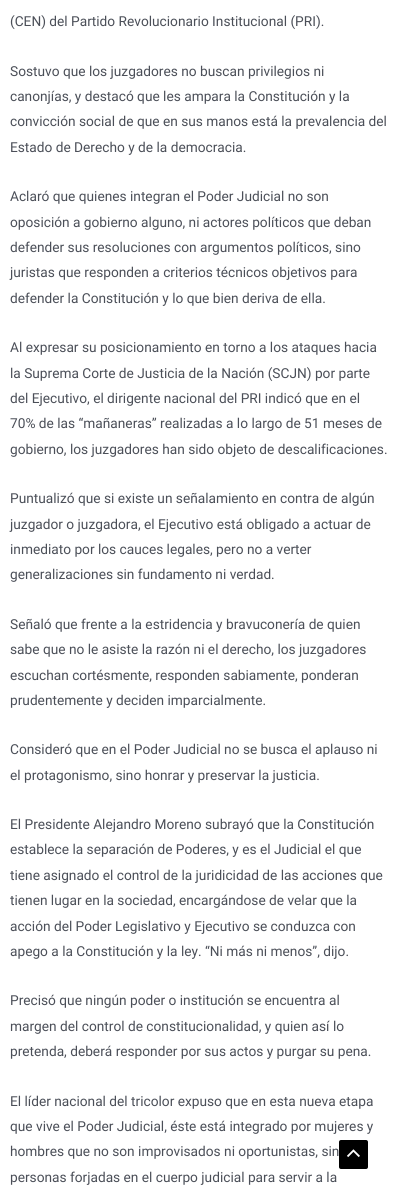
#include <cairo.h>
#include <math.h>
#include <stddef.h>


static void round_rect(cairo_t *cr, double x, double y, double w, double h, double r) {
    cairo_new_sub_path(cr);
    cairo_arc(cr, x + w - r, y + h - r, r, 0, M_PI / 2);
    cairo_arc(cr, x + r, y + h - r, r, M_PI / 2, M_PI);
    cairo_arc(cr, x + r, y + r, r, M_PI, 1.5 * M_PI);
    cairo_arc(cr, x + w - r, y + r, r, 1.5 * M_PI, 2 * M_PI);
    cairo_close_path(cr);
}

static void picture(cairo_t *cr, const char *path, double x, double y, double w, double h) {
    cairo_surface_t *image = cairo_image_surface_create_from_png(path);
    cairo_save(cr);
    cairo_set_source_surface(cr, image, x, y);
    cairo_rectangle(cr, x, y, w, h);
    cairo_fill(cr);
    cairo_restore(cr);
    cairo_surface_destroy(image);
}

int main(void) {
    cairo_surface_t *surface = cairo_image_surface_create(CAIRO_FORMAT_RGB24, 398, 1199);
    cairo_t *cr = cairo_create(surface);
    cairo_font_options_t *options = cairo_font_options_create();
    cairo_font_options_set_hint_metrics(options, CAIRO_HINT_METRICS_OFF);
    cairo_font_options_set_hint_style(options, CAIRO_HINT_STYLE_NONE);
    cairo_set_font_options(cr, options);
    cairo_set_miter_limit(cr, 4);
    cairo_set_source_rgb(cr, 1, 1, 1);
    cairo_paint(cr);
    cairo_select_font_face(cr, "Roboto", CAIRO_FONT_SLANT_NORMAL, CAIRO_FONT_WEIGHT_NORMAL);
    cairo_set_font_size(cr, 13.7);
    cairo_set_source_rgb(cr, 0.294, 0.31, 0.345);
    cairo_move_to(cr, 10, 26);
    cairo_show_text(cr, "(CEN) del Partido Revolucionario Institucional (PRI).");
    cairo_move_to(cr, 10, 76);
    cairo_show_text(cr, "Sostuvo que los juzgadores no buscan privilegios ni");
    cairo_move_to(cr, 10, 101);
    cairo_show_text(cr, "canonjías, y destacó que les ampara la Constitución y la");
    cairo_move_to(cr, 10, 126);
    cairo_show_text(cr, "convicción social de que en sus manos está la prevalencia del");
    cairo_move_to(cr, 10, 152);
    cairo_show_text(cr, "Estado de Derecho y de la democracia.");
    cairo_move_to(cr, 10, 201);
    cairo_show_text(cr, "Aclaró que quienes integran el Poder Judicial no son");
    cairo_move_to(cr, 10, 227);
    cairo_show_text(cr, "oposición a gobierno alguno, ni actores políticos que deban");
    cairo_move_to(cr, 10, 252);
    cairo_show_text(cr, "defender sus resoluciones con argumentos políticos, sino");
    cairo_move_to(cr, 10, 277);
    cairo_show_text(cr, "juristas que responden a criterios técnicos objetivos para");
    cairo_move_to(cr, 10, 303);
    cairo_show_text(cr, "defender la Constitución y lo que bien deriva de ella.");
    cairo_move_to(cr, 10, 352);
    cairo_show_text(cr, "Al expresar su posicionamiento en torno a los ataques hacia");
    cairo_move_to(cr, 10, 378);
    cairo_show_text(cr, "la Suprema Corte de Justicia de la Nación (SCJN) por parte");
    cairo_move_to(cr, 10, 403);
    cairo_show_text(cr, "del Ejecutivo, el dirigente nacional del PRI indicó que en el");
    cairo_move_to(cr, 10, 428);
    cairo_show_text(cr, "70% de las “mañaneras” realizadas a lo largo de 51 meses de");
    cairo_move_to(cr, 10, 454);
    cairo_show_text(cr, "gobierno, los juzgadores han sido objeto de descalificaciones.");
    cairo_move_to(cr, 10, 503);
    cairo_show_text(cr, "Puntualizó que si existe un señalamiento en contra de algún");
    cairo_move_to(cr, 10, 529);
    cairo_show_text(cr, "juzgador o juzgadora, el Ejecutivo está obligado a actuar de");
    cairo_move_to(cr, 10, 554);
    cairo_show_text(cr, "inmediato por los cauces legales, pero no a verter");
    cairo_move_to(cr, 10, 579);
    cairo_show_text(cr, "generalizaciones sin fundamento ni verdad.");
    cairo_move_to(cr, 10, 629);
    cairo_show_text(cr, "Señaló que frente a la estridencia y bravuconería de quien");
    cairo_move_to(cr, 10, 654);
    cairo_show_text(cr, "sabe que no le asiste la razón ni el derecho, los juzgadores");
    cairo_move_to(cr, 10, 680);
    cairo_show_text(cr, "escuchan cortésmente, responden sabiamente, ponderan");
    cairo_move_to(cr, 10, 705);
    cairo_show_text(cr, "prudentemente y deciden imparcialmente.");
    cairo_move_to(cr, 10, 754);
    cairo_show_text(cr, "Consideró que en el Poder Judicial no se busca el aplauso ni");
    cairo_move_to(cr, 10, 780);
    cairo_show_text(cr, "el protagonismo, sino honrar y preservar la justicia.");
    cairo_move_to(cr, 10, 829);
    cairo_show_text(cr, "El Presidente Alejandro Moreno subrayó que la Constitución");
    cairo_move_to(cr, 10, 854);
    cairo_show_text(cr, "establece la separación de Poderes, y es el Judicial el que");
    cairo_move_to(cr, 10, 880);
    cairo_show_text(cr, "tiene asignado el control de la juridicidad de las acciones que");
    cairo_move_to(cr, 10, 905);
    cairo_show_text(cr, "tienen lugar en la sociedad, encargándose de velar que la");
    cairo_move_to(cr, 10, 931);
    cairo_show_text(cr, "acción del Poder Legislativo y Ejecutivo se conduzca con");
    cairo_move_to(cr, 10, 956);
    cairo_show_text(cr, "apego a la Constitución y la ley. “Ni más ni menos”, dijo.");
    cairo_move_to(cr, 10, 1005);
    cairo_show_text(cr, "Precisó que ningún poder o institución se encuentra al");
    cairo_move_to(cr, 10, 1031);
    cairo_show_text(cr, "margen del control de constitucionalidad, y quien así lo");
    cairo_move_to(cr, 10, 1056);
    cairo_show_text(cr, "pretenda, deberá responder por sus actos y purgar su pena.");
    cairo_move_to(cr, 10, 1106);
    cairo_show_text(cr, "El líder nacional del tricolor expuso que en esta nueva etapa");
    cairo_move_to(cr, 10, 1131);
    cairo_show_text(cr, "que vive el Poder Judicial, éste está integrado por mujeres y");
    cairo_move_to(cr, 10, 1156);
    cairo_show_text(cr, "hombres que no son improvisados ni oportunistas, sin");
    cairo_move_to(cr, 10, 1182);
    cairo_show_text(cr, "personas forjadas en el cuerpo judicial para servir a la");
    cairo_set_source_rgb(cr, 0, 0, 0);
    round_rect(cr, 339, 1140, 29, 29, 2);
    cairo_fill(cr);
    picture(cr, "img1.png", 347, 1149, 13, 9);
    cairo_surface_write_to_png(surface, "page.png");
    cairo_font_options_destroy(options);
    cairo_destroy(cr);
    cairo_surface_destroy(surface);
    return 0;
}
